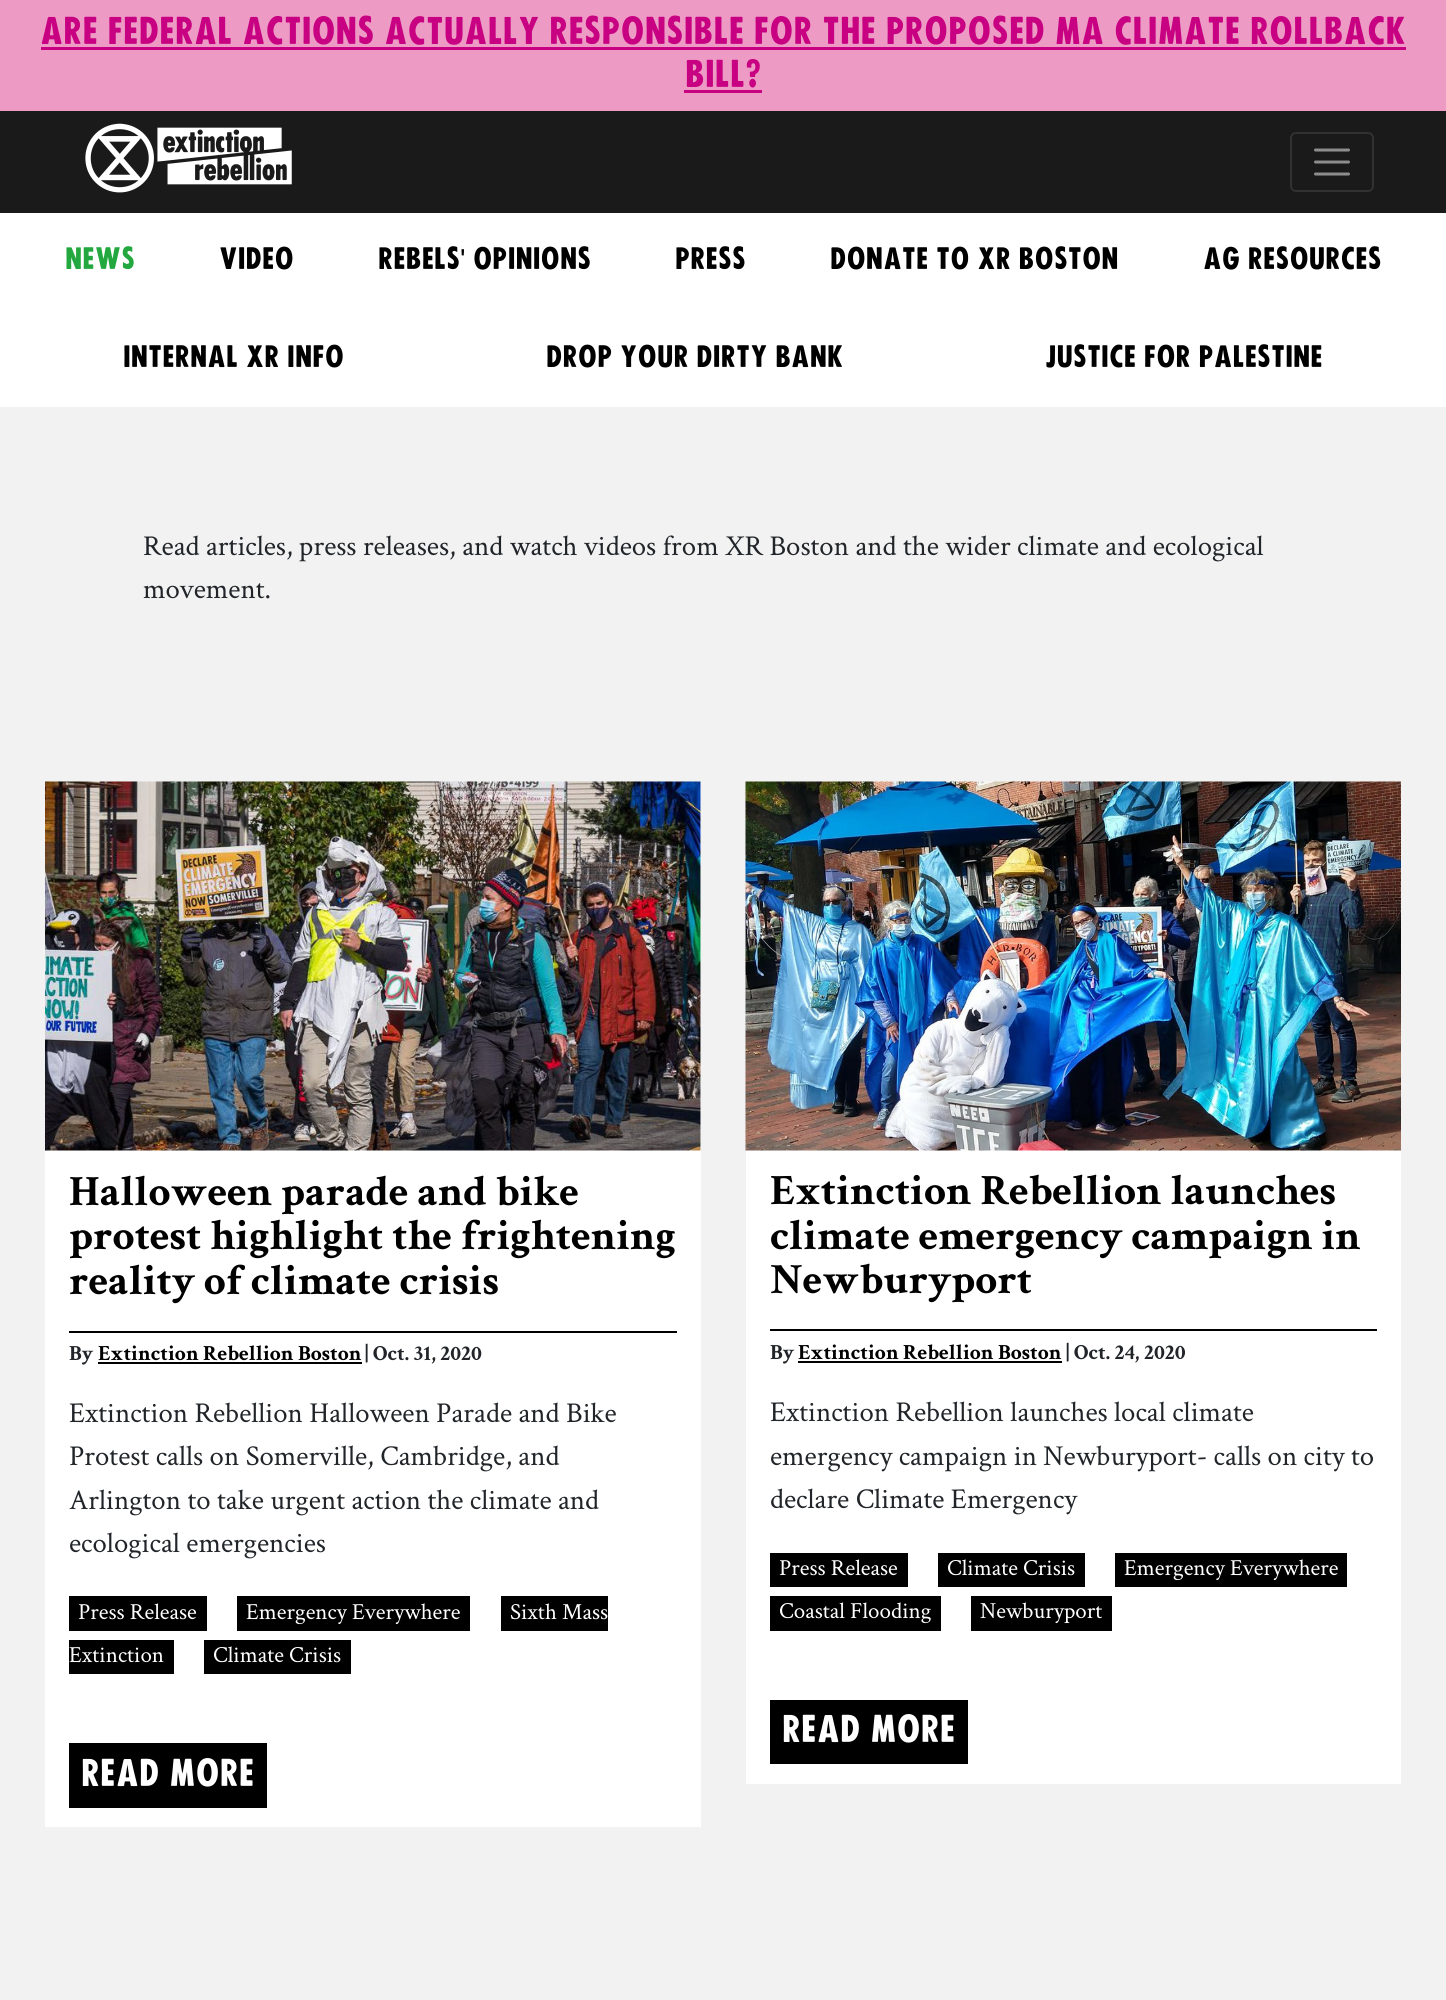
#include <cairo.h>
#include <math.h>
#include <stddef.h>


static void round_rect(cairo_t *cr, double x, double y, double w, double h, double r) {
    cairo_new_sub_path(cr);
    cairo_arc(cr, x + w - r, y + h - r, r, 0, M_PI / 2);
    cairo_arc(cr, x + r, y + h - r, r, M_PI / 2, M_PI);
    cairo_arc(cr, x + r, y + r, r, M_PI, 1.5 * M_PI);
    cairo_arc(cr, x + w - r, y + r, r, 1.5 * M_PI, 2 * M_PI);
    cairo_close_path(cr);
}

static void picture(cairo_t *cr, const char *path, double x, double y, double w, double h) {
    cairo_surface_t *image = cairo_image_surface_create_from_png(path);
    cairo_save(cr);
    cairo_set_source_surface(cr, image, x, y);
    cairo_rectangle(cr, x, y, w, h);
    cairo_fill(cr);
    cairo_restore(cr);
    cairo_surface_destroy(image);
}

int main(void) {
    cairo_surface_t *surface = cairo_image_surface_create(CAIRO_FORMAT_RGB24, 1446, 2000);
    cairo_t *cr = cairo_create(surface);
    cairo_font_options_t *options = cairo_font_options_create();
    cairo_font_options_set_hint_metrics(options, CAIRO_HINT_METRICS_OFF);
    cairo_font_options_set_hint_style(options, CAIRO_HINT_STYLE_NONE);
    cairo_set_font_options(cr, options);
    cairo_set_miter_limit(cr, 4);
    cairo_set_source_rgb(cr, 0.102, 0.102, 0.102);
    cairo_paint(cr);
    cairo_set_source_rgb(cr, 0.929, 0.608, 0.769);
    cairo_rectangle(cr, 0, 0, 1446, 111);
    cairo_fill(cr);
    cairo_select_font_face(cr, "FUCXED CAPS", CAIRO_FONT_SLANT_NORMAL, CAIRO_FONT_WEIGHT_NORMAL);
    cairo_set_font_size(cr, 36);
    cairo_set_source_rgb(cr, 0.784, 0, 0.51);
    cairo_move_to(cr, 40, 44);
    cairo_show_text(cr, "Are Federal Actions ACTUALLY responsible for the Proposed MA Climate Rollback");
    cairo_rectangle(cr, 41, 47, 1365, 3);
    cairo_fill(cr);
    cairo_move_to(cr, 685, 87);
    cairo_show_text(cr, "Bill?");
    cairo_rectangle(cr, 684, 90, 78, 3);
    cairo_fill(cr);
    picture(cr, "img1.png", 85, 123, 207, 70);
    round_rect(cr, 1291, 133, 82, 58, 5);
    cairo_set_source_rgb(cr, 0.192, 0.192, 0.192);
    cairo_stroke(cr);
    cairo_new_path(cr);
    cairo_move_to(cr, 1315.5, 150);
    cairo_line_to(cr, 1348.5, 150);
    cairo_move_to(cr, 1315.5, 162);
    cairo_line_to(cr, 1348.5, 162);
    cairo_move_to(cr, 1315.5, 174);
    cairo_line_to(cr, 1348.5, 174);
    cairo_set_source_rgb(cr, 0.553, 0.553, 0.553);
    cairo_set_line_width(cr, 3);
    cairo_set_line_cap(cr, CAIRO_LINE_CAP_ROUND);
    cairo_stroke(cr);
    cairo_set_source_rgb(cr, 0.949, 0.949, 0.949);
    cairo_rectangle(cr, 0, 407, 1446, 1593);
    cairo_fill(cr);
    cairo_set_source_rgb(cr, 1, 1, 1);
    cairo_rectangle(cr, 0, 213, 1446, 194);
    cairo_fill(cr);
    cairo_set_font_size(cr, 28.8);
    cairo_set_source_rgb(cr, 0.133, 0.659, 0.243);
    cairo_move_to(cr, 65, 269);
    cairo_show_text(cr, "News");
    cairo_set_source_rgb(cr, 0, 0, 0);
    cairo_move_to(cr, 219, 269);
    cairo_show_text(cr, "Video");
    cairo_move_to(cr, 378, 269);
    cairo_show_text(cr, "Rebels");
    cairo_select_font_face(cr, "Liberation Sans", CAIRO_FONT_SLANT_NORMAL, CAIRO_FONT_WEIGHT_NORMAL);
    cairo_move_to(cr, 460, 269);
    cairo_show_text(cr, "'");
    cairo_select_font_face(cr, "FUCXED CAPS", CAIRO_FONT_SLANT_NORMAL, CAIRO_FONT_WEIGHT_NORMAL);
    cairo_move_to(cr, 473, 269);
    cairo_show_text(cr, "Opinions");
    cairo_move_to(cr, 675, 269);
    cairo_show_text(cr, "Press");
    cairo_move_to(cr, 830, 269);
    cairo_show_text(cr, "Donate to XR Boston");
    cairo_move_to(cr, 1203, 269);
    cairo_show_text(cr, "AG Resources");
    cairo_move_to(cr, 123, 367);
    cairo_show_text(cr, "Internal XR Info");
    cairo_move_to(cr, 546, 367);
    cairo_show_text(cr, "Drop Your Dirty Bank");
    cairo_move_to(cr, 1045, 367);
    cairo_show_text(cr, "Justice for Palestine");
    cairo_select_font_face(cr, "Crimson Text", CAIRO_FONT_SLANT_NORMAL, CAIRO_FONT_WEIGHT_NORMAL);
    cairo_set_source_rgb(cr, 0.129, 0.145, 0.161);
    cairo_move_to(cr, 143, 555);
    cairo_show_text(cr, "Read articles, press releases, and watch videos from XR Boston and the wider climate and ecological");
    cairo_move_to(cr, 143, 598);
    cairo_show_text(cr, "movement.");
    cairo_set_source_rgb(cr, 1, 1, 1);
    cairo_rectangle(cr, 45, 782, 656, 1045);
    cairo_fill(cr);
    picture(cr, "img2.png", 45, 781, 656, 370);
    cairo_select_font_face(cr, "Crimson Text", CAIRO_FONT_SLANT_NORMAL, CAIRO_FONT_WEIGHT_BOLD);
    cairo_set_font_size(cr, 43.25);
    cairo_set_source_rgb(cr, 0, 0, 0);
    cairo_move_to(cr, 69, 1205);
    cairo_show_text(cr, "Halloween parade and bike");
    cairo_move_to(cr, 69, 1249);
    cairo_show_text(cr, "protest highlight the frightening");
    cairo_move_to(cr, 69, 1294);
    cairo_show_text(cr, "reality of climate crisis");
    cairo_rectangle(cr, 69, 1331, 608, 2);
    cairo_fill(cr);
    cairo_set_font_size(cr, 21.6);
    cairo_set_source_rgb(cr, 0.129, 0.145, 0.161);
    cairo_move_to(cr, 69, 1360);
    cairo_show_text(cr, "By");
    cairo_set_source_rgb(cr, 0, 0, 0);
    cairo_move_to(cr, 98, 1360);
    cairo_show_text(cr, "Extinction Rebellion Boston");
    cairo_rectangle(cr, 98, 1362, 264, 2);
    cairo_fill(cr);
    cairo_set_source_rgb(cr, 0.129, 0.145, 0.161);
    cairo_move_to(cr, 365, 1360);
    cairo_show_text(cr, "| Oct. 31, 2020");
    cairo_select_font_face(cr, "Crimson Text", CAIRO_FONT_SLANT_NORMAL, CAIRO_FONT_WEIGHT_NORMAL);
    cairo_set_font_size(cr, 28.8);
    cairo_move_to(cr, 69, 1422);
    cairo_show_text(cr, "Extinction Rebellion Halloween Parade and Bike");
    cairo_move_to(cr, 69, 1465);
    cairo_show_text(cr, "Protest calls on Somerville, Cambridge, and");
    cairo_move_to(cr, 69, 1509);
    cairo_show_text(cr, "Arlington to take urgent action the climate and");
    cairo_move_to(cr, 69, 1552);
    cairo_show_text(cr, "ecological emergencies");
    cairo_set_source_rgb(cr, 0, 0, 0);
    cairo_rectangle(cr, 69, 1596, 138, 35);
    cairo_fill(cr);
    cairo_set_font_size(cr, 23);
    cairo_set_source_rgb(cr, 1, 1, 1);
    cairo_move_to(cr, 78, 1619);
    cairo_show_text(cr, "Press Release");
    cairo_set_source_rgb(cr, 0, 0, 0);
    cairo_rectangle(cr, 237, 1596, 233, 35);
    cairo_fill(cr);
    cairo_set_source_rgb(cr, 1, 1, 1);
    cairo_move_to(cr, 246, 1619);
    cairo_show_text(cr, "Emergency Everywhere");
    cairo_set_source_rgb(cr, 0, 0, 0);
    cairo_rectangle(cr, 501, 1596, 107, 35);
    cairo_fill(cr);
    cairo_set_source_rgb(cr, 1, 1, 1);
    cairo_move_to(cr, 510, 1619);
    cairo_show_text(cr, "Sixth Mass");
    cairo_set_source_rgb(cr, 0, 0, 0);
    cairo_rectangle(cr, 69, 1640, 105, 34);
    cairo_fill(cr);
    cairo_set_source_rgb(cr, 1, 1, 1);
    cairo_move_to(cr, 69, 1662);
    cairo_show_text(cr, "Extinction");
    cairo_set_source_rgb(cr, 0, 0, 0);
    cairo_rectangle(cr, 204, 1640, 147, 34);
    cairo_fill(cr);
    cairo_set_source_rgb(cr, 1, 1, 1);
    cairo_move_to(cr, 213, 1662);
    cairo_show_text(cr, "Climate Crisis");
    cairo_set_source_rgb(cr, 0, 0, 0);
    cairo_rectangle(cr, 69, 1743, 198, 65);
    cairo_fill(cr);
    cairo_select_font_face(cr, "FUCXED CAPS", CAIRO_FONT_SLANT_NORMAL, CAIRO_FONT_WEIGHT_NORMAL);
    cairo_set_font_size(cr, 36);
    cairo_set_source_rgb(cr, 1, 1, 1);
    cairo_move_to(cr, 81, 1786);
    cairo_show_text(cr, "Read more");
    cairo_rectangle(cr, 746, 1150, 655, 634);
    cairo_fill(cr);
    picture(cr, "img3.png", 745, 781, 656, 370);
    cairo_select_font_face(cr, "Crimson Text", CAIRO_FONT_SLANT_NORMAL, CAIRO_FONT_WEIGHT_BOLD);
    cairo_set_font_size(cr, 43.25);
    cairo_set_source_rgb(cr, 0, 0, 0);
    cairo_move_to(cr, 770, 1204);
    cairo_show_text(cr, "Extinction Rebellion launches");
    cairo_move_to(cr, 770, 1249);
    cairo_show_text(cr, "climate emergency campaign in");
    cairo_move_to(cr, 770, 1293);
    cairo_show_text(cr, "Newburyport");
    cairo_rectangle(cr, 770, 1329, 607, 2);
    cairo_fill(cr);
    cairo_set_font_size(cr, 21.6);
    cairo_set_source_rgb(cr, 0.129, 0.145, 0.161);
    cairo_move_to(cr, 770, 1359);
    cairo_show_text(cr, "By");
    cairo_set_source_rgb(cr, 0, 0, 0);
    cairo_move_to(cr, 798, 1359);
    cairo_show_text(cr, "Extinction Rebellion Boston");
    cairo_rectangle(cr, 798, 1361, 264, 2);
    cairo_fill(cr);
    cairo_set_source_rgb(cr, 0.129, 0.145, 0.161);
    cairo_move_to(cr, 1066, 1359);
    cairo_show_text(cr, "| Oct. 24, 2020");
    cairo_select_font_face(cr, "Crimson Text", CAIRO_FONT_SLANT_NORMAL, CAIRO_FONT_WEIGHT_NORMAL);
    cairo_set_font_size(cr, 28.8);
    cairo_move_to(cr, 770, 1421);
    cairo_show_text(cr, "Extinction Rebellion launches local climate");
    cairo_move_to(cr, 770, 1465);
    cairo_show_text(cr, "emergency campaign in Newburyport- calls on city to");
    cairo_move_to(cr, 770, 1508);
    cairo_show_text(cr, "declare Climate Emergency");
    cairo_set_source_rgb(cr, 0, 0, 0);
    cairo_rectangle(cr, 770, 1553, 138, 34);
    cairo_fill(cr);
    cairo_set_font_size(cr, 23);
    cairo_set_source_rgb(cr, 1, 1, 1);
    cairo_move_to(cr, 779, 1575);
    cairo_show_text(cr, "Press Release");
    cairo_set_source_rgb(cr, 0, 0, 0);
    cairo_rectangle(cr, 938, 1553, 147, 34);
    cairo_fill(cr);
    cairo_set_source_rgb(cr, 1, 1, 1);
    cairo_move_to(cr, 947, 1575);
    cairo_show_text(cr, "Climate Crisis");
    cairo_set_source_rgb(cr, 0, 0, 0);
    cairo_rectangle(cr, 1115, 1553, 232, 34);
    cairo_fill(cr);
    cairo_set_source_rgb(cr, 1, 1, 1);
    cairo_move_to(cr, 1124, 1575);
    cairo_show_text(cr, "Emergency Everywhere");
    cairo_set_source_rgb(cr, 0, 0, 0);
    cairo_rectangle(cr, 770, 1596, 171, 35);
    cairo_fill(cr);
    cairo_set_source_rgb(cr, 1, 1, 1);
    cairo_move_to(cr, 779, 1618);
    cairo_show_text(cr, "Coastal Flooding");
    cairo_set_source_rgb(cr, 0, 0, 0);
    cairo_rectangle(cr, 971, 1596, 141, 35);
    cairo_fill(cr);
    cairo_set_source_rgb(cr, 1, 1, 1);
    cairo_move_to(cr, 980, 1618);
    cairo_show_text(cr, "Newburyport");
    cairo_set_source_rgb(cr, 0, 0, 0);
    cairo_rectangle(cr, 770, 1700, 198, 64);
    cairo_fill(cr);
    cairo_select_font_face(cr, "FUCXED CAPS", CAIRO_FONT_SLANT_NORMAL, CAIRO_FONT_WEIGHT_NORMAL);
    cairo_set_font_size(cr, 36);
    cairo_set_source_rgb(cr, 1, 1, 1);
    cairo_move_to(cr, 782, 1742);
    cairo_show_text(cr, "Read more");
    cairo_surface_write_to_png(surface, "page.png");
    cairo_font_options_destroy(options);
    cairo_destroy(cr);
    cairo_surface_destroy(surface);
    return 0;
}
